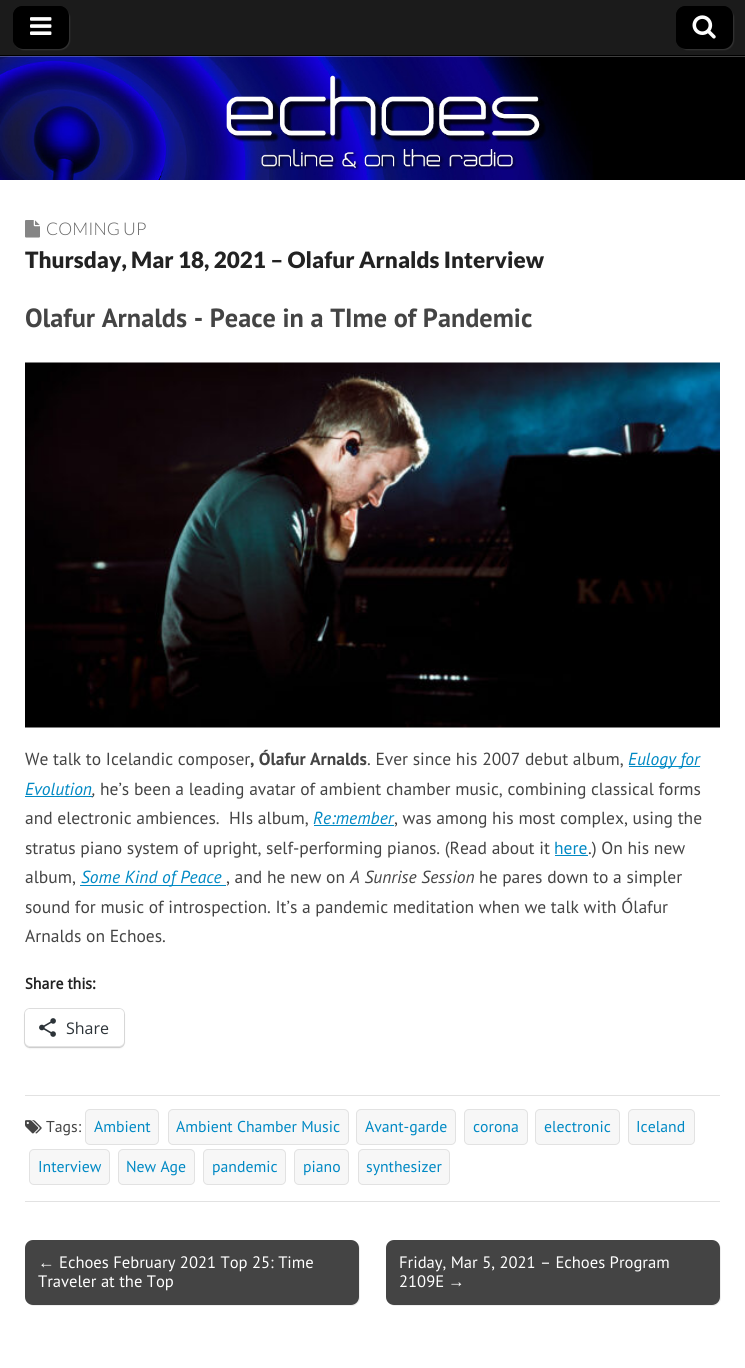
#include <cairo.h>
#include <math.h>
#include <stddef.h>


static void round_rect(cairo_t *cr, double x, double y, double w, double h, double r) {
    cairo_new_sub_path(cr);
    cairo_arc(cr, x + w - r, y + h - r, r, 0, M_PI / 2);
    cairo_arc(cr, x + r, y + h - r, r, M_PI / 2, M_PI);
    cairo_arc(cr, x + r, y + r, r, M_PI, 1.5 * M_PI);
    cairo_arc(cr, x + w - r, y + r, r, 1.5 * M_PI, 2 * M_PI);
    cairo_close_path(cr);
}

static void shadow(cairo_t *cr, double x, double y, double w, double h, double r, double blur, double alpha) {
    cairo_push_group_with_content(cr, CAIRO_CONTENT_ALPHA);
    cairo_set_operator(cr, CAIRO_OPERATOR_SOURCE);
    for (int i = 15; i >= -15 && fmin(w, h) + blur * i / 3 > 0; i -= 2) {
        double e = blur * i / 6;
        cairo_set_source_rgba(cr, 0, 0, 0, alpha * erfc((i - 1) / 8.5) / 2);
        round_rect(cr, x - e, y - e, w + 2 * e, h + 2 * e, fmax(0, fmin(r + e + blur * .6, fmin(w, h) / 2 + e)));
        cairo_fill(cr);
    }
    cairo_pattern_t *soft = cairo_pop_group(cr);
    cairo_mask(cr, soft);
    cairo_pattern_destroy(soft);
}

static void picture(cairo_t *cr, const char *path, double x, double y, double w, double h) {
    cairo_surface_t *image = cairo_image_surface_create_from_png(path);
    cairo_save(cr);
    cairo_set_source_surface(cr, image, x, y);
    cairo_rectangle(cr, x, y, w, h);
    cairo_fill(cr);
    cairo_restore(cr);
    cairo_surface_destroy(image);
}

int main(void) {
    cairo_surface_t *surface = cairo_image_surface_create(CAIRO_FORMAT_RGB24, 745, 1368);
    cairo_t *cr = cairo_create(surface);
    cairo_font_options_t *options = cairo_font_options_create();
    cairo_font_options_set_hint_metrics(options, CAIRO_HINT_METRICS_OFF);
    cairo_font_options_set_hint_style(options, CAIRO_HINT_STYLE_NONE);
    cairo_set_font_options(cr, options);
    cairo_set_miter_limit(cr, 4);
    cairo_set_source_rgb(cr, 1, 1, 1);
    cairo_paint(cr);
    cairo_set_source_rgb(cr, 0.106, 0.106, 0.106);
    cairo_rectangle(cr, 0, 0, 745, 55);
    cairo_fill(cr);
    cairo_set_source_rgb(cr, 0, 0, 0);
    cairo_rectangle(cr, 0, 55, 745, 1);
    cairo_fill(cr);
    cairo_set_source_rgb(cr, 0.2, 0.2, 0.2);
    shadow(cr, 14, 8, 56, 42, 10, 0.5, 1);
    cairo_set_source_rgb(cr, 0, 0, 0);
    round_rect(cr, 13, 6, 56, 43, 10);
    cairo_fill(cr);
    cairo_new_path(cr);
    cairo_move_to(cr, 24, 8);
    cairo_line_to(cr, 60, 8);
    cairo_curve_to(cr, 63, 8, 66, 9, 68, 12);
    cairo_curve_to(cr, 66, 8, 63, 6, 59, 6);
    cairo_line_to(cr, 23, 6);
    cairo_curve_to(cr, 17, 6, 13, 10, 13, 16);
    cairo_line_to(cr, 13, 39);
    cairo_curve_to(cr, 13, 41, 14, 44, 15, 45);
    cairo_curve_to(cr, 13, 41, 14, 34, 14, 29);
    cairo_curve_to(cr, 14, 21, 12, 8, 24, 8);
    cairo_close_path(cr);
    cairo_fill(cr);
    picture(cr, "img1.png", 30, 17, 22, 18);
    cairo_set_source_rgb(cr, 0.2, 0.2, 0.2);
    shadow(cr, 678, 8, 56, 42, 10, 0.5, 1);
    cairo_set_source_rgb(cr, 0, 0, 0);
    round_rect(cr, 676, 6, 57, 43, 10);
    cairo_fill(cr);
    cairo_new_path(cr);
    cairo_move_to(cr, 688, 8);
    cairo_line_to(cr, 724, 8);
    cairo_curve_to(cr, 727, 8, 731, 10, 732, 13);
    cairo_curve_to(cr, 731, 9, 727, 6, 723, 6);
    cairo_line_to(cr, 686, 6);
    cairo_curve_to(cr, 680, 6, 676, 10, 676, 16);
    cairo_line_to(cr, 676, 39);
    cairo_curve_to(cr, 676, 43, 678, 46, 682, 48);
    cairo_curve_to(cr, 676, 44, 678, 35, 678, 29);
    cairo_curve_to(cr, 678, 21, 676, 8, 688, 8);
    cairo_close_path(cr);
    cairo_fill(cr);
    picture(cr, "img2.png", 692, 15, 24, 24);
    picture(cr, "img3.png", 0, 56, 745, 124);
    cairo_set_source_rgb(cr, 0.886, 0.886, 0.886);
    cairo_rectangle(cr, 25, 1201, 695, 1);
    cairo_fill(cr);
    picture(cr, "img4.png", 25, 220, 15, 18);
    cairo_select_font_face(cr, "Lato Light", CAIRO_FONT_SLANT_NORMAL, CAIRO_FONT_WEIGHT_NORMAL);
    cairo_set_font_size(cr, 17.5);
    cairo_set_source_rgb(cr, 0.4, 0.4, 0.4);
    cairo_move_to(cr, 46, 235);
    cairo_show_text(cr, "COMING UP");
    cairo_select_font_face(cr, "Lato Black", CAIRO_FONT_SLANT_NORMAL, CAIRO_FONT_WEIGHT_NORMAL);
    cairo_set_font_size(cr, 22.5);
    cairo_set_source_rgb(cr, 0.133, 0.133, 0.133);
    cairo_move_to(cr, 25, 268);
    cairo_show_text(cr, "Thursday, Mar 18, 2021 – Olafur Arnalds Interview");
    cairo_select_font_face(cr, "PT Sans", CAIRO_FONT_SLANT_NORMAL, CAIRO_FONT_WEIGHT_BOLD);
    cairo_set_font_size(cr, 26.25);
    cairo_set_source_rgb(cr, 0.267, 0.267, 0.267);
    cairo_move_to(cr, 25, 327);
    cairo_show_text(cr, "Olafur Arnalds - Peace in a TIme of Pandemic");
    picture(cr, "img5.png", 25, 362, 695, 366);
    cairo_select_font_face(cr, "PT Sans", CAIRO_FONT_SLANT_NORMAL, CAIRO_FONT_WEIGHT_NORMAL);
    cairo_set_font_size(cr, 17.5);
    cairo_move_to(cr, 25, 765);
    cairo_show_text(cr, "We talk to Icelandic composer");
    cairo_select_font_face(cr, "PT Sans", CAIRO_FONT_SLANT_NORMAL, CAIRO_FONT_WEIGHT_BOLD);
    cairo_move_to(cr, 250, 765);
    cairo_show_text(cr, ", Ólafur Arnalds");
    cairo_select_font_face(cr, "PT Sans", CAIRO_FONT_SLANT_NORMAL, CAIRO_FONT_WEIGHT_NORMAL);
    cairo_move_to(cr, 367, 765);
    cairo_show_text(cr, ". Ever since his 2007 debut album,");
    cairo_set_source_rgb(cr, 0, 0.537, 0.769);
    cairo_rectangle(cr, 629, 766, 71, 1);
    cairo_fill(cr);
    cairo_select_font_face(cr, "PT Sans", CAIRO_FONT_SLANT_ITALIC, CAIRO_FONT_WEIGHT_NORMAL);
    cairo_move_to(cr, 628, 765);
    cairo_show_text(cr, "Eulogy for");
    cairo_move_to(cr, 25, 795);
    cairo_show_text(cr, "Evolution");
    cairo_rectangle(cr, 25, 796, 68, 1);
    cairo_fill(cr);
    cairo_set_source_rgb(cr, 0.267, 0.267, 0.267);
    cairo_move_to(cr, 92, 795);
    cairo_show_text(cr, ",");
    cairo_select_font_face(cr, "PT Sans", CAIRO_FONT_SLANT_NORMAL, CAIRO_FONT_WEIGHT_NORMAL);
    cairo_move_to(cr, 100, 795);
    cairo_show_text(cr, "he’s been a leading avatar of ambient chamber music, combining classical forms");
    cairo_move_to(cr, 25, 824);
    cairo_show_text(cr, "and electronic ambiences.  HIs album,");
    cairo_select_font_face(cr, "PT Sans", CAIRO_FONT_SLANT_ITALIC, CAIRO_FONT_WEIGHT_NORMAL);
    cairo_set_source_rgb(cr, 0, 0.537, 0.769);
    cairo_move_to(cr, 313, 824);
    cairo_show_text(cr, "Re:member");
    cairo_rectangle(cr, 314, 825, 80, 1);
    cairo_fill(cr);
    cairo_select_font_face(cr, "PT Sans", CAIRO_FONT_SLANT_NORMAL, CAIRO_FONT_WEIGHT_NORMAL);
    cairo_set_source_rgb(cr, 0.267, 0.267, 0.267);
    cairo_move_to(cr, 394, 824);
    cairo_show_text(cr, ", was among his most complex, using the");
    cairo_move_to(cr, 25, 854);
    cairo_show_text(cr, "stratus piano system of upright, self-performing pianos. (Read about it");
    cairo_set_source_rgb(cr, 0, 0.537, 0.769);
    cairo_move_to(cr, 554, 854);
    cairo_show_text(cr, "here");
    cairo_rectangle(cr, 555, 855, 33, 1);
    cairo_fill(cr);
    cairo_set_source_rgb(cr, 0.267, 0.267, 0.267);
    cairo_move_to(cr, 588, 854);
    cairo_show_text(cr, ".) On his new");
    cairo_move_to(cr, 25, 883);
    cairo_show_text(cr, "album,");
    cairo_set_source_rgb(cr, 0, 0.537, 0.769);
    cairo_rectangle(cr, 80, 885, 146, 1);
    cairo_fill(cr);
    cairo_select_font_face(cr, "PT Sans", CAIRO_FONT_SLANT_ITALIC, CAIRO_FONT_WEIGHT_NORMAL);
    cairo_move_to(cr, 81, 883);
    cairo_show_text(cr, "Some Kind of Peace");
    cairo_select_font_face(cr, "PT Sans", CAIRO_FONT_SLANT_NORMAL, CAIRO_FONT_WEIGHT_NORMAL);
    cairo_set_source_rgb(cr, 0.267, 0.267, 0.267);
    cairo_move_to(cr, 226, 883);
    cairo_show_text(cr, ", and he new on");
    cairo_select_font_face(cr, "PT Sans", CAIRO_FONT_SLANT_ITALIC, CAIRO_FONT_WEIGHT_NORMAL);
    cairo_move_to(cr, 350, 883);
    cairo_show_text(cr, "A Sunrise Session");
    cairo_select_font_face(cr, "PT Sans", CAIRO_FONT_SLANT_NORMAL, CAIRO_FONT_WEIGHT_NORMAL);
    cairo_move_to(cr, 479, 883);
    cairo_show_text(cr, "he pares down to a simpler");
    cairo_move_to(cr, 25, 913);
    cairo_show_text(cr, "sound for music of introspection. It’s a pandemic meditation when we talk with Ólafur");
    cairo_move_to(cr, 25, 942);
    cairo_show_text(cr, "Arnalds on Echoes.");
    cairo_select_font_face(cr, "Droid Sans", CAIRO_FONT_SLANT_NORMAL, CAIRO_FONT_WEIGHT_BOLD);
    cairo_set_font_size(cr, 15);
    cairo_set_source_rgb(cr, 0.133, 0.133, 0.133);
    cairo_move_to(cr, 25, 989);
    cairo_show_text(cr, "Share this:");
    round_rect(cr, 24.5, 1008.5, 100, 39, 5.5);
    cairo_set_source_rgb(cr, 0.878, 0.878, 0.878);
    cairo_set_line_width(cr, 1);
    cairo_stroke(cr);
    cairo_set_source_rgb(cr, 0, 0, 0);
    shadow(cr, 25, 1010, 99, 38, 5, 1, 0.12);
    cairo_set_source_rgb(cr, 1, 1, 1);
    round_rect(cr, 25, 1009, 99, 37, 5);
    cairo_fill(cr);
    picture(cr, "img6.png", 39, 1018, 17, 19);
    cairo_select_font_face(cr, "Open Sans", CAIRO_FONT_SLANT_NORMAL, CAIRO_FONT_WEIGHT_NORMAL);
    cairo_set_font_size(cr, 16);
    cairo_set_source_rgb(cr, 0.173, 0.2, 0.22);
    cairo_move_to(cr, 66, 1034);
    cairo_show_text(cr, "Share");
    cairo_set_source_rgb(cr, 0.886, 0.886, 0.886);
    cairo_rectangle(cr, 25, 1095, 695, 1);
    cairo_fill(cr);
    picture(cr, "img7.png", 25, 1120, 17, 14);
    cairo_select_font_face(cr, "PT Sans", CAIRO_FONT_SLANT_NORMAL, CAIRO_FONT_WEIGHT_NORMAL);
    cairo_set_font_size(cr, 15.75);
    cairo_set_source_rgb(cr, 0.267, 0.267, 0.267);
    cairo_move_to(cr, 46, 1132);
    cairo_show_text(cr, "Tags:");
    cairo_set_source_rgb(cr, 0.965, 0.965, 0.965);
    round_rect(cr, 85.5, 1109.5, 73, 35, 4.5);
    cairo_fill_preserve(cr);
    cairo_set_source_rgb(cr, 0.886, 0.886, 0.886);
    cairo_stroke(cr);
    cairo_set_source_rgb(cr, 0, 0.537, 0.769);
    cairo_move_to(cr, 94, 1132);
    cairo_show_text(cr, "Ambient");
    cairo_set_source_rgb(cr, 0.965, 0.965, 0.965);
    round_rect(cr, 168.5, 1109.5, 180, 35, 4.5);
    cairo_fill_preserve(cr);
    cairo_set_source_rgb(cr, 0.886, 0.886, 0.886);
    cairo_stroke(cr);
    cairo_set_source_rgb(cr, 0, 0.537, 0.769);
    cairo_move_to(cr, 176, 1132);
    cairo_show_text(cr, "Ambient Chamber Music");
    cairo_set_source_rgb(cr, 0.965, 0.965, 0.965);
    round_rect(cr, 356.5, 1109.5, 99, 35, 4.5);
    cairo_fill_preserve(cr);
    cairo_set_source_rgb(cr, 0.886, 0.886, 0.886);
    cairo_stroke(cr);
    cairo_set_source_rgb(cr, 0, 0.537, 0.769);
    cairo_move_to(cr, 365, 1132);
    cairo_show_text(cr, "Avant-garde");
    cairo_set_source_rgb(cr, 0.965, 0.965, 0.965);
    round_rect(cr, 464.5, 1109.5, 63, 35, 4.5);
    cairo_fill_preserve(cr);
    cairo_set_source_rgb(cr, 0.886, 0.886, 0.886);
    cairo_stroke(cr);
    cairo_set_source_rgb(cr, 0, 0.537, 0.769);
    cairo_move_to(cr, 473, 1132);
    cairo_show_text(cr, "corona");
    cairo_set_source_rgb(cr, 0.965, 0.965, 0.965);
    round_rect(cr, 535.5, 1109.5, 84, 35, 4.5);
    cairo_fill_preserve(cr);
    cairo_set_source_rgb(cr, 0.886, 0.886, 0.886);
    cairo_stroke(cr);
    cairo_set_source_rgb(cr, 0, 0.537, 0.769);
    cairo_move_to(cr, 544, 1132);
    cairo_show_text(cr, "electronic");
    cairo_set_source_rgb(cr, 0.965, 0.965, 0.965);
    round_rect(cr, 628.5, 1109.5, 66, 35, 4.5);
    cairo_fill_preserve(cr);
    cairo_set_source_rgb(cr, 0.886, 0.886, 0.886);
    cairo_stroke(cr);
    cairo_set_source_rgb(cr, 0, 0.537, 0.769);
    cairo_move_to(cr, 636, 1132);
    cairo_show_text(cr, "Iceland");
    cairo_set_source_rgb(cr, 0.965, 0.965, 0.965);
    round_rect(cr, 29.5, 1149.5, 80, 35, 4.5);
    cairo_fill_preserve(cr);
    cairo_set_source_rgb(cr, 0.886, 0.886, 0.886);
    cairo_stroke(cr);
    cairo_set_source_rgb(cr, 0, 0.537, 0.769);
    cairo_move_to(cr, 38, 1172);
    cairo_show_text(cr, "Interview");
    cairo_set_source_rgb(cr, 0.965, 0.965, 0.965);
    round_rect(cr, 118.5, 1149.5, 76, 35, 4.5);
    cairo_fill_preserve(cr);
    cairo_set_source_rgb(cr, 0.886, 0.886, 0.886);
    cairo_stroke(cr);
    cairo_set_source_rgb(cr, 0, 0.537, 0.769);
    cairo_move_to(cr, 126, 1172);
    cairo_show_text(cr, "New Age");
    cairo_set_source_rgb(cr, 0.965, 0.965, 0.965);
    round_rect(cr, 203.5, 1149.5, 82, 35, 4.5);
    cairo_fill_preserve(cr);
    cairo_set_source_rgb(cr, 0.886, 0.886, 0.886);
    cairo_stroke(cr);
    cairo_set_source_rgb(cr, 0, 0.537, 0.769);
    cairo_move_to(cr, 212, 1172);
    cairo_show_text(cr, "pandemic");
    cairo_set_source_rgb(cr, 0.965, 0.965, 0.965);
    round_rect(cr, 294.5, 1149.5, 54, 35, 4.5);
    cairo_fill_preserve(cr);
    cairo_set_source_rgb(cr, 0.886, 0.886, 0.886);
    cairo_stroke(cr);
    cairo_set_source_rgb(cr, 0, 0.537, 0.769);
    cairo_move_to(cr, 303, 1172);
    cairo_show_text(cr, "piano");
    cairo_set_source_rgb(cr, 0.965, 0.965, 0.965);
    round_rect(cr, 358.5, 1149.5, 91, 35, 4.5);
    cairo_fill_preserve(cr);
    cairo_set_source_rgb(cr, 0.886, 0.886, 0.886);
    cairo_stroke(cr);
    cairo_set_source_rgb(cr, 0, 0.537, 0.769);
    cairo_move_to(cr, 366, 1172);
    cairo_show_text(cr, "synthesizer");
    cairo_set_source_rgb(cr, 0.933, 0.933, 0.933);
    cairo_new_path(cr);
    cairo_move_to(cr, 29, 1304);
    cairo_curve_to(cr, 30, 1305, 32, 1306, 34, 1306);
    cairo_line_to(cr, 352, 1306);
    cairo_curve_to(cr, 356, 1306, 360, 1302, 360, 1298);
    cairo_line_to(cr, 360, 1249);
    cairo_curve_to(cr, 360, 1247, 359, 1244, 357, 1243);
    cairo_curve_to(cr, 358, 1244, 359, 1246, 359, 1248);
    cairo_line_to(cr, 359, 1298);
    cairo_curve_to(cr, 359, 1302, 355, 1305, 351, 1305);
    cairo_line_to(cr, 32, 1305);
    cairo_curve_to(cr, 31, 1305, 30, 1305, 29, 1304);
    cairo_close_path(cr);
    cairo_fill(cr);
    cairo_set_source_rgb(cr, 0.267, 0.267, 0.267);
    round_rect(cr, 25, 1240, 334, 65, 8);
    cairo_fill(cr);
    cairo_select_font_face(cr, "Liberation Sans", CAIRO_FONT_SLANT_NORMAL, CAIRO_FONT_WEIGHT_NORMAL);
    cairo_set_font_size(cr, 16.6);
    cairo_set_source_rgb(cr, 1, 1, 1);
    cairo_move_to(cr, 38, 1268);
    cairo_show_text(cr, "←");
    cairo_select_font_face(cr, "PT Sans", CAIRO_FONT_SLANT_NORMAL, CAIRO_FONT_WEIGHT_NORMAL);
    cairo_move_to(cr, 59, 1268);
    cairo_show_text(cr, "Echoes February 2021 Top 25: Time");
    cairo_move_to(cr, 38, 1287);
    cairo_show_text(cr, "Traveler at the Top");
    cairo_set_source_rgb(cr, 0.933, 0.933, 0.933);
    cairo_new_path(cr);
    cairo_move_to(cr, 392, 1305);
    cairo_curve_to(cr, 393, 1306, 394, 1306, 396, 1306);
    cairo_line_to(cr, 713, 1306);
    cairo_curve_to(cr, 717, 1306, 721, 1302, 721, 1298);
    cairo_line_to(cr, 721, 1249);
    cairo_curve_to(cr, 721, 1247, 720, 1245, 719, 1244);
    cairo_curve_to(cr, 720, 1245, 720, 1246, 720, 1248);
    cairo_line_to(cr, 720, 1298);
    cairo_curve_to(cr, 720, 1302, 717, 1305, 712, 1305);
    cairo_close_path(cr);
    cairo_fill(cr);
    cairo_set_source_rgb(cr, 0.267, 0.267, 0.267);
    round_rect(cr, 386, 1240, 334, 65, 8);
    cairo_fill(cr);
    cairo_set_source_rgb(cr, 1, 1, 1);
    cairo_move_to(cr, 399, 1268);
    cairo_show_text(cr, "Friday, Mar 5, 2021 – Echoes Program");
    cairo_move_to(cr, 399, 1287);
    cairo_show_text(cr, "2109E");
    cairo_select_font_face(cr, "Liberation Sans", CAIRO_FONT_SLANT_NORMAL, CAIRO_FONT_WEIGHT_NORMAL);
    cairo_move_to(cr, 448, 1287);
    cairo_show_text(cr, "→");
    cairo_surface_write_to_png(surface, "page.png");
    cairo_font_options_destroy(options);
    cairo_destroy(cr);
    cairo_surface_destroy(surface);
    return 0;
}
